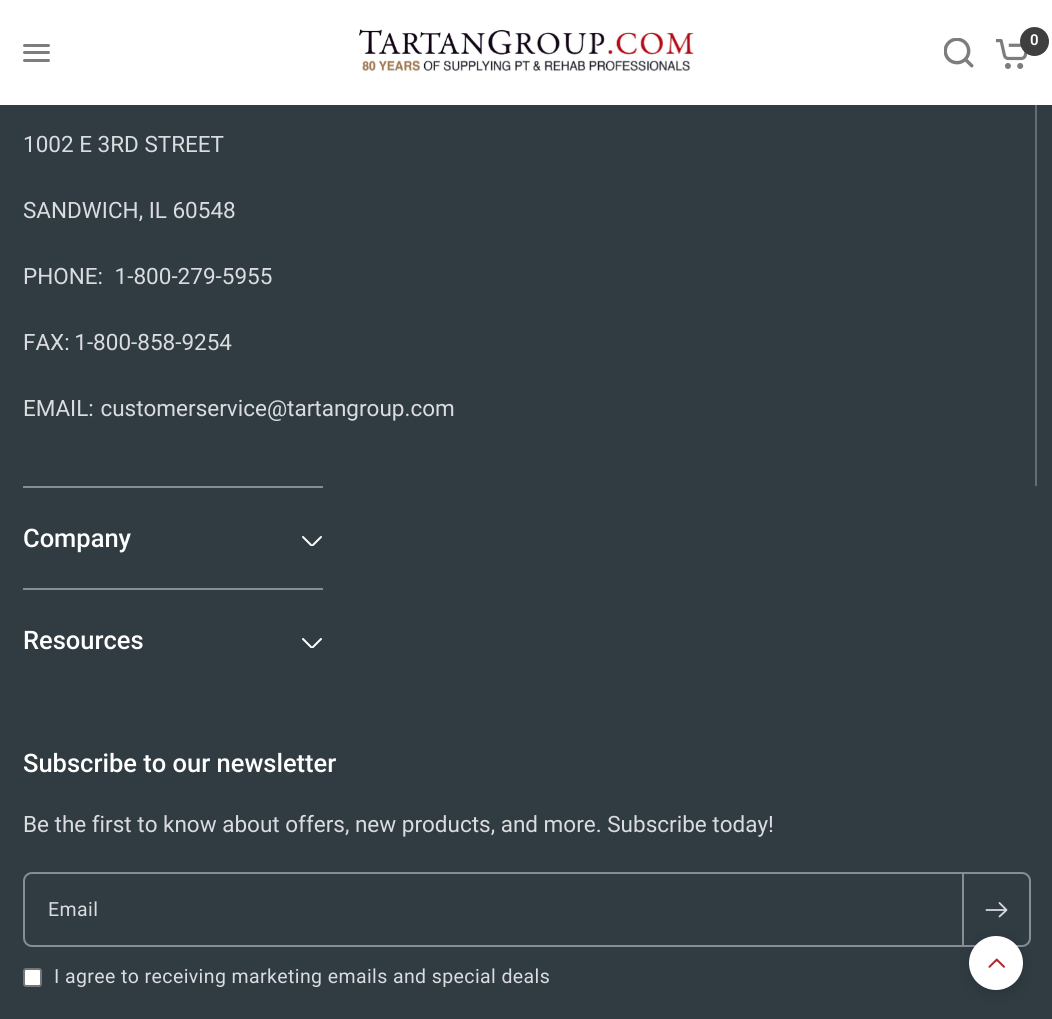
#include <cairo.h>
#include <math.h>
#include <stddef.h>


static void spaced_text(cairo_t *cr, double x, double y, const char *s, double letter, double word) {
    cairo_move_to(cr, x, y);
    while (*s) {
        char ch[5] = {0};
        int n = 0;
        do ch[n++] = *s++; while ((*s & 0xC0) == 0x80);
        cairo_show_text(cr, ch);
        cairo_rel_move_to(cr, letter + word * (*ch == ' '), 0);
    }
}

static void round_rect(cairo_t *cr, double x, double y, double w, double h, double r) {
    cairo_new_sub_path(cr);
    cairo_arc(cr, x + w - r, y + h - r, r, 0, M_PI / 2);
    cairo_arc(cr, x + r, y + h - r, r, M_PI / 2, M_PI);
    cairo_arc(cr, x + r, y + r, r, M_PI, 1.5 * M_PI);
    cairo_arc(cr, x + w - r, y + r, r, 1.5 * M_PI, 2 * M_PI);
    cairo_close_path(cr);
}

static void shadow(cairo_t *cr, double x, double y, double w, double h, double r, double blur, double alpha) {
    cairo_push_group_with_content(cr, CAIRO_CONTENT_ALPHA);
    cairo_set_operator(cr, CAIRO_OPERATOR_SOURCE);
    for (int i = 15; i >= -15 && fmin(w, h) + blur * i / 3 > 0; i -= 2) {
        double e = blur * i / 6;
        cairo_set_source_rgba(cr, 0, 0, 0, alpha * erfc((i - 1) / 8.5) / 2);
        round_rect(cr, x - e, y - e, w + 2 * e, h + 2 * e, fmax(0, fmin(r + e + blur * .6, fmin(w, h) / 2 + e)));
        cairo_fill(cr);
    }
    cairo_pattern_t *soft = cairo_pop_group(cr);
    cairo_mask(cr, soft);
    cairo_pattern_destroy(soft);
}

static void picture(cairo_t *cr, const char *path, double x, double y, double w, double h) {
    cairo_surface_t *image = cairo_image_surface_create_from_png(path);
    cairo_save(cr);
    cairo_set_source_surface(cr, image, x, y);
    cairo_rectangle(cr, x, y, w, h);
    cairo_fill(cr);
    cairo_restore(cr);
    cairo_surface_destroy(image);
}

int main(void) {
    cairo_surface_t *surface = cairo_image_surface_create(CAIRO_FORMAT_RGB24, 1052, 1019);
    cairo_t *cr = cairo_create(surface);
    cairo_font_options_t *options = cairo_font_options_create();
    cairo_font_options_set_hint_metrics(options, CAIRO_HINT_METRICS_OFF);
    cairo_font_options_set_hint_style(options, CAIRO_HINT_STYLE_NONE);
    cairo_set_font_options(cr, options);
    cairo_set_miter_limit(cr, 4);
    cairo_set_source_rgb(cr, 0.188, 0.235, 0.259);
    cairo_paint(cr);
    cairo_set_source_rgb(cr, 1, 1, 1);
    cairo_rectangle(cr, 0, 0, 1052, 105);
    cairo_fill(cr);
    picture(cr, "img1.png", 359, 29, 335, 43);
    picture(cr, "img2.png", 944, 38, 30, 30);
    picture(cr, "img3.png", 995, 39, 33, 30);
    cairo_set_source_rgb(cr, 0.247, 0.247, 0.247);
    cairo_arc(cr, 1034.5, 41.5, 14.5, 0, 2 * M_PI);
    cairo_fill(cr);
    cairo_select_font_face(cr, "Roboto SemiBold", CAIRO_FONT_SLANT_NORMAL, CAIRO_FONT_WEIGHT_NORMAL);
    cairo_set_font_size(cr, 15);
    cairo_set_source_rgb(cr, 1, 1, 1);
    cairo_move_to(cr, 1030, 45);
    cairo_show_text(cr, "0");
    cairo_set_source_rgb(cr, 0.498, 0.486, 0.486);
    round_rect(cr, 23, 44, 27, 3, 1.5);
    cairo_fill(cr);
    round_rect(cr, 23, 51, 27, 3, 1.5);
    cairo_fill(cr);
    round_rect(cr, 23, 59, 27, 3, 1.5);
    cairo_fill(cr);
    cairo_set_source_rgb(cr, 0.392, 0.427, 0.443);
    cairo_rectangle(cr, 1035, 105, 2, 381);
    cairo_fill(cr);
    cairo_select_font_face(cr, "Roboto", CAIRO_FONT_SLANT_NORMAL, CAIRO_FONT_WEIGHT_NORMAL);
    cairo_set_font_size(cr, 22.5);
    cairo_set_source_rgb(cr, 0.855, 0.863, 0.878);
    cairo_move_to(cr, 23, 152);
    cairo_show_text(cr, "1002 E 3RD STREET");
    cairo_move_to(cr, 23, 218);
    cairo_show_text(cr, "SANDWICH, IL 60548");
    spaced_text(cr, 23, 284, "PHONE: 1-800-279-5955", 0, 6);
    spaced_text(cr, 23, 350, "FAX: 1-800-858-9254", 0, -1);
    spaced_text(cr, 23, 416, "EMAIL: customerservice@tartangroup.com", 0, 1);
    cairo_set_source_rgb(cr, 0.525, 0.553, 0.58);
    cairo_rectangle(cr, 23, 486, 300, 2);
    cairo_fill(cr);
    cairo_select_font_face(cr, "Roboto Medium", CAIRO_FONT_SLANT_NORMAL, CAIRO_FONT_WEIGHT_NORMAL);
    cairo_set_font_size(cr, 25.5);
    cairo_set_source_rgb(cr, 1, 1, 1);
    cairo_move_to(cr, 23, 547);
    cairo_show_text(cr, "Company");
    cairo_save(cr);
    cairo_rectangle(cr, 302, 534, 21, 12);
    cairo_clip(cr);
    cairo_new_path(cr);
    cairo_move_to(cr, 321, 537);
    cairo_line_to(cr, 312, 546);
    cairo_line_to(cr, 303, 537);
    cairo_set_line_cap(cr, CAIRO_LINE_CAP_ROUND);
    cairo_set_line_join(cr, CAIRO_LINE_JOIN_ROUND);
    cairo_stroke(cr);
    cairo_restore(cr);
    cairo_set_source_rgb(cr, 0.525, 0.553, 0.58);
    cairo_rectangle(cr, 23, 588, 300, 2);
    cairo_fill(cr);
    cairo_set_source_rgb(cr, 1, 1, 1);
    cairo_move_to(cr, 23, 649);
    cairo_show_text(cr, "Resources");
    cairo_save(cr);
    cairo_rectangle(cr, 302, 636, 21, 12);
    cairo_clip(cr);
    cairo_new_path(cr);
    cairo_move_to(cr, 321, 639);
    cairo_line_to(cr, 312, 648);
    cairo_line_to(cr, 303, 639);
    cairo_set_line_cap(cr, CAIRO_LINE_CAP_ROUND);
    cairo_set_line_join(cr, CAIRO_LINE_JOIN_ROUND);
    cairo_stroke(cr);
    cairo_restore(cr);
    cairo_move_to(cr, 23, 772);
    cairo_show_text(cr, "Subscribe to our newsletter");
    cairo_select_font_face(cr, "Roboto", CAIRO_FONT_SLANT_NORMAL, CAIRO_FONT_WEIGHT_NORMAL);
    cairo_set_font_size(cr, 22.5);
    cairo_set_source_rgb(cr, 0.855, 0.863, 0.878);
    cairo_move_to(cr, 23, 832);
    cairo_show_text(cr, "Be the first to know about offers, new products, and more. Subscribe today!");
    round_rect(cr, 24, 873, 1006, 73, 8);
    cairo_set_source_rgb(cr, 0.525, 0.553, 0.58);
    cairo_stroke(cr);
    cairo_set_font_size(cr, 19.5);
    cairo_set_source_rgb(cr, 0.855, 0.863, 0.878);
    spaced_text(cr, 48, 916, "Email", 0.4, 0);
    cairo_set_source_rgb(cr, 0.525, 0.553, 0.58);
    cairo_rectangle(cr, 962, 873, 2, 72);
    cairo_fill(cr);
    cairo_new_path(cr);
    cairo_move_to(cr, 986.5, 910);
    cairo_line_to(cr, 1004.5, 910);
    cairo_move_to(cr, 999.5, 903);
    cairo_line_to(cr, 1006.5, 910);
    cairo_line_to(cr, 999.5, 916.5);
    cairo_set_source_rgb(cr, 0.855, 0.863, 0.878);
    cairo_set_line_width(cr, 1.8);
    cairo_set_line_cap(cr, CAIRO_LINE_CAP_ROUND);
    cairo_set_line_join(cr, CAIRO_LINE_JOIN_ROUND);
    cairo_stroke(cr);
    cairo_set_source_rgb(cr, 1, 1, 1);
    round_rect(cr, 24, 969, 17, 17, 2);
    cairo_fill_preserve(cr);
    cairo_set_source_rgb(cr, 0.463, 0.463, 0.463);
    cairo_set_line_width(cr, 2);
    cairo_set_line_cap(cr, CAIRO_LINE_CAP_BUTT);
    cairo_set_line_join(cr, CAIRO_LINE_JOIN_MITER);
    cairo_stroke(cr);
    cairo_set_source_rgb(cr, 0.855, 0.863, 0.878);
    spaced_text(cr, 54, 983, "I agree to receiving marketing emails and special deals", 0.4, 0);
    cairo_set_source_rgb(cr, 0, 0, 0);
    shadow(cr, 969, 939, 54, 54, 27, 7.5, 0.15);
    cairo_set_source_rgb(cr, 1, 1, 1);
    cairo_arc(cr, 996, 963, 27, 0, 2 * M_PI);
    cairo_fill(cr);
    picture(cr, "img4.png", 988, 958, 17, 10);
    cairo_surface_write_to_png(surface, "page.png");
    cairo_font_options_destroy(options);
    cairo_destroy(cr);
    cairo_surface_destroy(surface);
    return 0;
}
